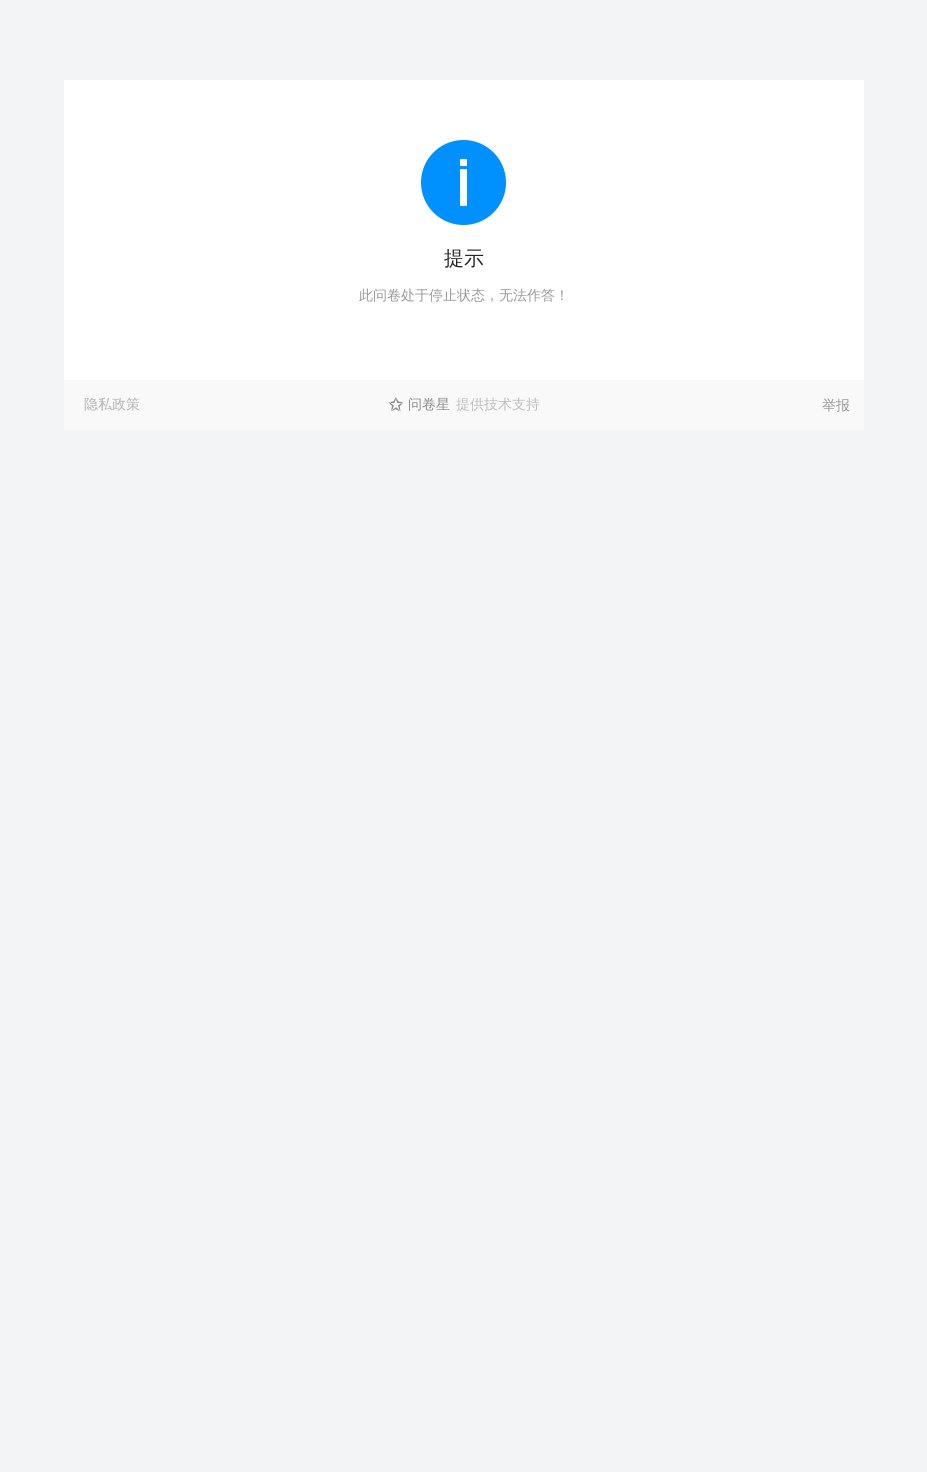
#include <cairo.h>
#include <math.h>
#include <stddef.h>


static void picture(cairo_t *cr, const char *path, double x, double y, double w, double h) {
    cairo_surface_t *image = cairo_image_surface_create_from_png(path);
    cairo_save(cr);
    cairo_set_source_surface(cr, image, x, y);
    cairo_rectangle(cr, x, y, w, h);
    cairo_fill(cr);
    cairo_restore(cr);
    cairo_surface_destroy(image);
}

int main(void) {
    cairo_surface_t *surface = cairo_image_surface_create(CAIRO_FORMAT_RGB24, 927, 1472);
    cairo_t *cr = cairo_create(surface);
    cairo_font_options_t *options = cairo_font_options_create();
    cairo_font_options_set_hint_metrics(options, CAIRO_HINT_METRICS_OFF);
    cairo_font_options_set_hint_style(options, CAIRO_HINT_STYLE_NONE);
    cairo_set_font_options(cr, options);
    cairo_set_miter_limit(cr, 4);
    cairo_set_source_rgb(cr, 0.953, 0.957, 0.961);
    cairo_paint(cr);
    cairo_set_source_rgb(cr, 1, 1, 1);
    cairo_rectangle(cr, 64, 80, 800, 300);
    cairo_fill(cr);
    picture(cr, "img1.png", 421, 140, 85, 85);
    cairo_select_font_face(cr, "WenQuanYi Zen Hei Medium", CAIRO_FONT_SLANT_NORMAL, CAIRO_FONT_WEIGHT_NORMAL);
    cairo_set_font_size(cr, 20);
    cairo_set_source_rgb(cr, 0.149, 0.149, 0.149);
    cairo_move_to(cr, 444, 265);
    cairo_show_text(cr, "提示");
    cairo_set_font_size(cr, 14);
    cairo_set_source_rgb(cr, 0.6, 0.6, 0.6);
    cairo_move_to(cr, 359, 300);
    cairo_show_text(cr, "此问卷处于停止状态，无法作答！");
    cairo_set_source_rgb(cr, 0.976, 0.976, 0.976);
    cairo_rectangle(cr, 64, 380, 800, 50);
    cairo_fill(cr);
    cairo_set_source_rgb(cr, 0.702, 0.702, 0.702);
    cairo_move_to(cr, 84, 409);
    cairo_show_text(cr, "隐私政策");
    picture(cr, "img2.png", 388, 397, 16, 15);
    cairo_set_source_rgb(cr, 0.549, 0.549, 0.549);
    cairo_move_to(cr, 408, 409);
    cairo_show_text(cr, "问卷星");
    cairo_set_source_rgb(cr, 0.745, 0.745, 0.745);
    cairo_move_to(cr, 456, 409);
    cairo_show_text(cr, "提供技术支持");
    cairo_set_source_rgb(cr, 0.6, 0.6, 0.6);
    cairo_move_to(cr, 822, 410);
    cairo_show_text(cr, "举报");
    cairo_surface_write_to_png(surface, "page.png");
    cairo_font_options_destroy(options);
    cairo_destroy(cr);
    cairo_surface_destroy(surface);
    return 0;
}
